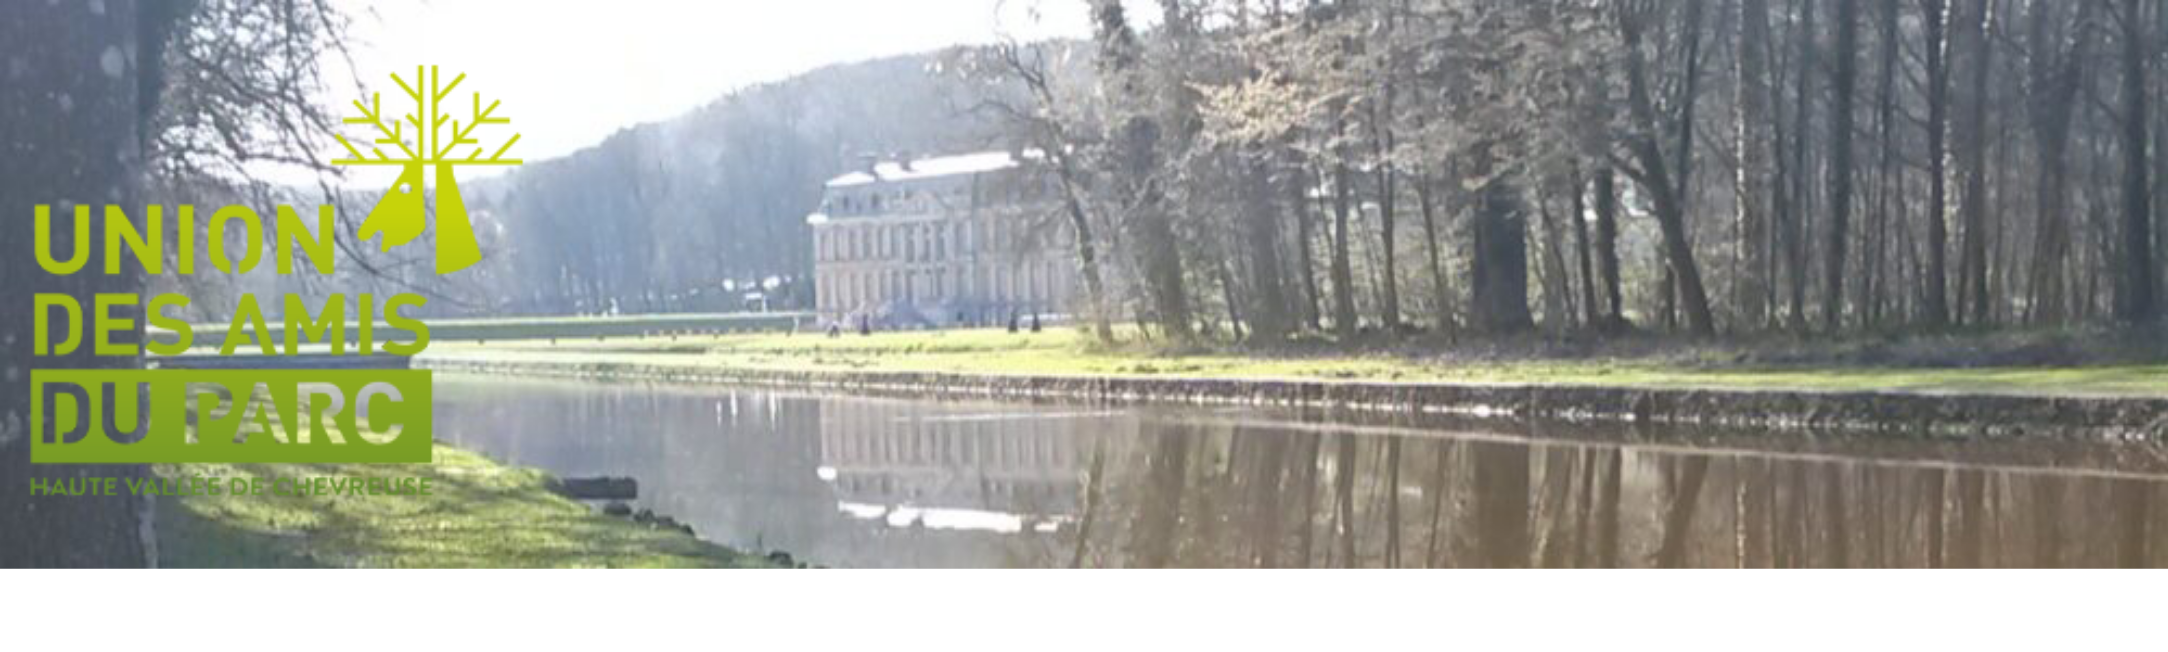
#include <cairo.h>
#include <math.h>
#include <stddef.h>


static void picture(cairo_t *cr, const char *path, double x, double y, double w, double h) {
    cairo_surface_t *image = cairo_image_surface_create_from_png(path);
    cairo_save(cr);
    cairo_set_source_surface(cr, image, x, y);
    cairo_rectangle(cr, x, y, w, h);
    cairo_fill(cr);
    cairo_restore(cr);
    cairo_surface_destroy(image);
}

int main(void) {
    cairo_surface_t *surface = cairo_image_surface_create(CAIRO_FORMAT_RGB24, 2168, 652);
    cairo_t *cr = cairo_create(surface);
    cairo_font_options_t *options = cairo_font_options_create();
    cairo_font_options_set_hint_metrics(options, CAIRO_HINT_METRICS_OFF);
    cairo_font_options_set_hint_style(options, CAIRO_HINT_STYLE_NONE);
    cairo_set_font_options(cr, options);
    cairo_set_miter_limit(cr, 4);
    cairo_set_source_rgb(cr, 1, 1, 1);
    cairo_paint(cr);
    picture(cr, "img1.png", 0, 0, 2168, 569);
    cairo_surface_write_to_png(surface, "page.png");
    cairo_font_options_destroy(options);
    cairo_destroy(cr);
    cairo_surface_destroy(surface);
    return 0;
}
